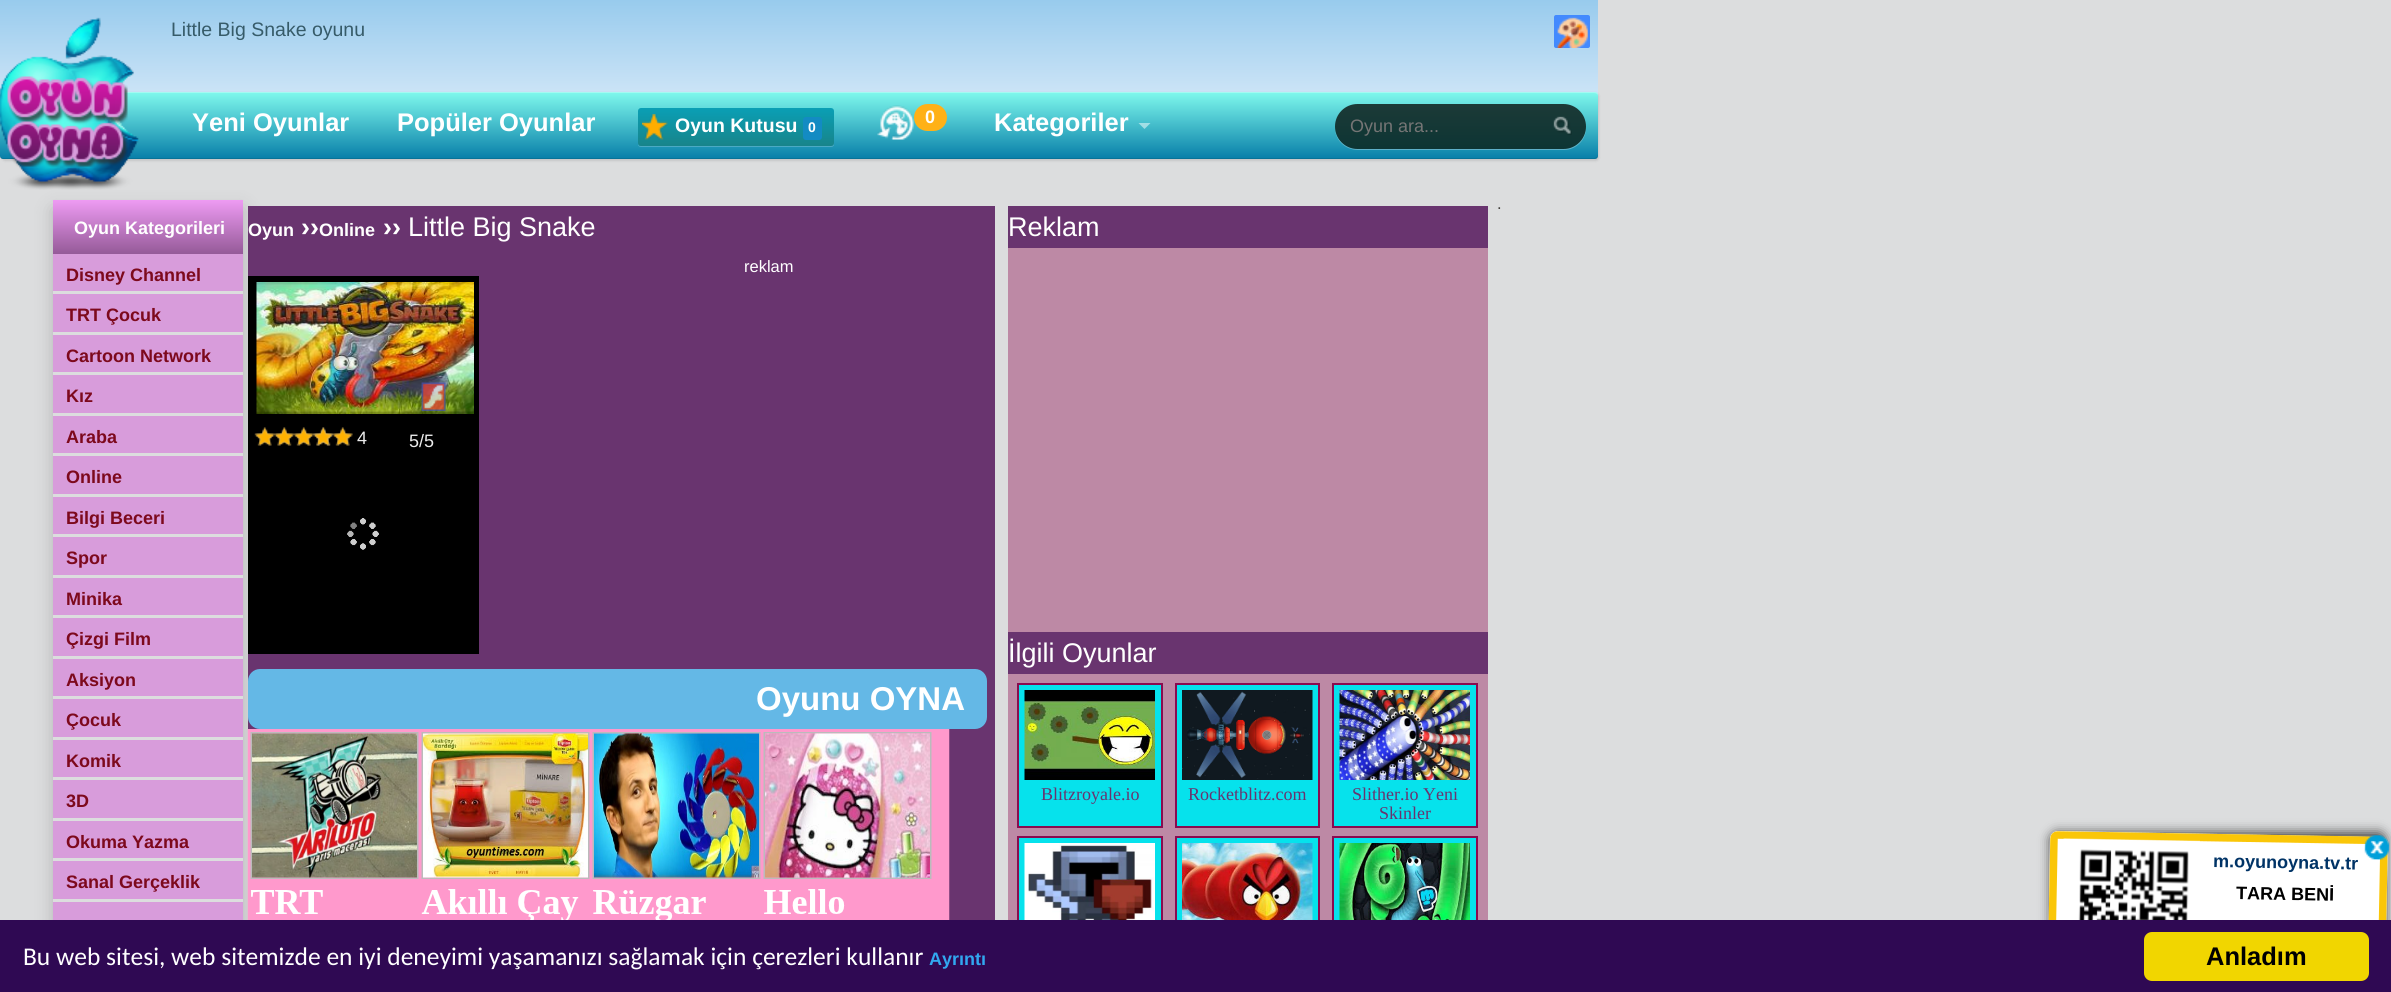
#include <cairo.h>
#include <math.h>
#include <stddef.h>


static void round_rect(cairo_t *cr, double x, double y, double w, double h, double r) {
    cairo_new_sub_path(cr);
    cairo_arc(cr, x + w - r, y + h - r, r, 0, M_PI / 2);
    cairo_arc(cr, x + r, y + h - r, r, M_PI / 2, M_PI);
    cairo_arc(cr, x + r, y + r, r, M_PI, 1.5 * M_PI);
    cairo_arc(cr, x + w - r, y + r, r, 1.5 * M_PI, 2 * M_PI);
    cairo_close_path(cr);
}

static void shadow(cairo_t *cr, double x, double y, double w, double h, double r, double blur, double alpha) {
    cairo_push_group_with_content(cr, CAIRO_CONTENT_ALPHA);
    cairo_set_operator(cr, CAIRO_OPERATOR_SOURCE);
    for (int i = 15; i >= -15 && fmin(w, h) + blur * i / 3 > 0; i -= 2) {
        double e = blur * i / 6;
        cairo_set_source_rgba(cr, 0, 0, 0, alpha * erfc((i - 1) / 8.5) / 2);
        round_rect(cr, x - e, y - e, w + 2 * e, h + 2 * e, fmax(0, fmin(r + e + blur * .6, fmin(w, h) / 2 + e)));
        cairo_fill(cr);
    }
    cairo_pattern_t *soft = cairo_pop_group(cr);
    cairo_mask(cr, soft);
    cairo_pattern_destroy(soft);
}

static void picture(cairo_t *cr, const char *path, double x, double y, double w, double h) {
    cairo_surface_t *image = cairo_image_surface_create_from_png(path);
    cairo_save(cr);
    cairo_set_source_surface(cr, image, x, y);
    cairo_rectangle(cr, x, y, w, h);
    cairo_fill(cr);
    cairo_restore(cr);
    cairo_surface_destroy(image);
}

int main(void) {
    cairo_surface_t *surface = cairo_image_surface_create(CAIRO_FORMAT_RGB24, 2391, 992);
    cairo_t *cr = cairo_create(surface);
    cairo_font_options_t *options = cairo_font_options_create();
    cairo_font_options_set_hint_metrics(options, CAIRO_HINT_METRICS_OFF);
    cairo_font_options_set_hint_style(options, CAIRO_HINT_STYLE_NONE);
    cairo_set_font_options(cr, options);
    cairo_set_miter_limit(cr, 4);
    cairo_pattern_t *gradient;
    cairo_set_source_rgb(cr, 0.863, 0.867, 0.871);
    cairo_paint(cr);
    gradient = cairo_pattern_create_linear(799, 0, 799, 98);
    cairo_pattern_add_color_stop_rgba(gradient, 0, 0.596, 0.796, 0.929, 1);
    cairo_pattern_add_color_stop_rgba(gradient, 1, 0.808, 0.898, 0.969, 1);
    cairo_set_source(cr, gradient);
    cairo_pattern_destroy(gradient);
    cairo_rectangle(cr, 0, 0, 1598, 95);
    cairo_fill(cr);
    cairo_select_font_face(cr, "Liberation Sans", CAIRO_FONT_SLANT_NORMAL, CAIRO_FONT_WEIGHT_NORMAL);
    cairo_set_font_size(cr, 19.5);
    cairo_set_source_rgb(cr, 0.212, 0.357, 0.412);
    cairo_move_to(cr, 171, 36);
    cairo_show_text(cr, "Little Big Snake oyunu");
    cairo_set_source_rgb(cr, 0.263, 0.541, 0.996);
    round_rect(cr, 1554, 15, 36, 33, 2);
    cairo_fill(cr);
    picture(cr, "img1.png", 1557, 17, 31, 31);
    cairo_set_source_rgb(cr, 0, 0, 0);
    shadow(cr, 2, 93, 1597, 68, 3, 1, 0.1);
    gradient = cairo_pattern_create_linear(799, 91, 799, 159);
    cairo_pattern_add_color_stop_rgba(gradient, 0, 0.506, 0.984, 0.933, 1);
    cairo_pattern_add_color_stop_rgba(gradient, 1, 0.027, 0.494, 0.659, 1);
    cairo_set_source(cr, gradient);
    cairo_pattern_destroy(gradient);
    round_rect(cr, 0, 92, 1598, 67, 3);
    cairo_fill(cr);
    cairo_set_source_rgba(cr, 0, 0, 0, 0.1);
    cairo_new_path(cr);
    cairo_move_to(cr, 0, 154);
    cairo_curve_to(cr, 0, 156, 0, 159, 3, 159);
    cairo_line_to(cr, 1595, 159);
    cairo_curve_to(cr, 1598, 159, 1598, 156, 1598, 154);
    cairo_curve_to(cr, 1598, 156, 1596, 158, 1594, 158);
    cairo_line_to(cr, 3, 158);
    cairo_curve_to(cr, 1, 158, 0, 156, 0, 154);
    cairo_close_path(cr);
    cairo_fill(cr);
    cairo_set_source_rgba(cr, 1, 1, 1, 0.3);
    cairo_new_path(cr);
    cairo_move_to(cr, 3, 93);
    cairo_line_to(cr, 1594, 93);
    cairo_curve_to(cr, 1596, 93, 1598, 94, 1598, 96);
    cairo_line_to(cr, 1598, 95);
    cairo_curve_to(cr, 1598, 93, 1597, 92, 1595, 92);
    cairo_line_to(cr, 3, 92);
    cairo_curve_to(cr, 1, 92, 0, 93, 0, 95);
    cairo_line_to(cr, 0, 96);
    cairo_curve_to(cr, 0, 94, 1, 93, 3, 93);
    cairo_close_path(cr);
    cairo_fill(cr);
    cairo_set_source_rgb(cr, 0, 0, 0);
    shadow(cr, 53, 209, 190, 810, 0, 9, 0.18);
    picture(cr, "img2.png", 0, 17, 139, 173);
    cairo_select_font_face(cr, "Liberation Sans", CAIRO_FONT_SLANT_NORMAL, CAIRO_FONT_WEIGHT_BOLD);
    cairo_set_font_size(cr, 25.5);
    cairo_set_source_rgb(cr, 1, 1, 1);
    cairo_move_to(cr, 192, 131);
    cairo_show_text(cr, "Yeni Oyunlar");
    cairo_move_to(cr, 397, 131);
    cairo_show_text(cr, "Popüler Oyunlar");
    cairo_set_source_rgba(cr, 1, 1, 1, 0.2);
    cairo_new_path(cr);
    cairo_move_to(cr, 638, 144);
    cairo_curve_to(cr, 638, 146, 639, 147, 641, 147);
    cairo_line_to(cr, 831, 147);
    cairo_curve_to(cr, 833, 147, 834, 146, 834, 144);
    cairo_line_to(cr, 834, 142);
    cairo_curve_to(cr, 834, 144, 833, 146, 831, 146);
    cairo_line_to(cr, 640, 146);
    cairo_curve_to(cr, 639, 146, 639, 145, 638, 144);
    cairo_close_path(cr);
    cairo_fill(cr);
    gradient = cairo_pattern_create_linear(736, 108, 736, 146);
    cairo_pattern_add_color_stop_rgba(gradient, 0, 0.039, 0.624, 0.71, 1);
    cairo_pattern_add_color_stop_rgba(gradient, 1, 0.094, 0.518, 0.541, 1);
    cairo_set_source(cr, gradient);
    cairo_pattern_destroy(gradient);
    round_rect(cr, 638, 108, 196, 38, 3);
    cairo_fill(cr);
    picture(cr, "img3.png", 642, 114, 26, 26);
    cairo_set_font_size(cr, 19.5);
    cairo_set_source_rgb(cr, 1, 1, 1);
    cairo_move_to(cr, 675, 132);
    cairo_show_text(cr, "Oyun Kutusu");
    cairo_set_source_rgb(cr, 0.075, 0.545, 0.765);
    round_rect(cr, 803, 117, 19, 23, 3);
    cairo_fill(cr);
    cairo_set_font_size(cr, 14);
    cairo_set_source_rgb(cr, 1, 1, 1);
    cairo_move_to(cr, 808, 132);
    cairo_show_text(cr, "0");
    picture(cr, "img4.png", 877, 105, 37, 35);
    cairo_set_source_rgb(cr, 1, 0.694, 0.09);
    round_rect(cr, 914, 104, 33, 27, 13.5);
    cairo_fill(cr);
    cairo_set_font_size(cr, 18);
    cairo_set_source_rgb(cr, 1, 1, 1);
    cairo_move_to(cr, 925, 123);
    cairo_show_text(cr, "0");
    cairo_set_font_size(cr, 25.5);
    cairo_move_to(cr, 994, 131);
    cairo_show_text(cr, "Kategoriler");
    cairo_set_source_rgba(cr, 1, 1, 1, 0.5);
    cairo_new_path(cr);
    cairo_move_to(cr, 1138.5, 123);
    cairo_line_to(cr, 1150.5, 123);
    cairo_line_to(cr, 1144.5, 129);
    cairo_close_path(cr);
    cairo_fill(cr);
    cairo_set_source_rgba(cr, 1, 1, 1, 0.3);
    cairo_new_path(cr);
    cairo_move_to(cr, 1335, 127);
    cairo_line_to(cr, 1335, 128);
    cairo_curve_to(cr, 1335, 140, 1345, 150, 1358, 150);
    cairo_line_to(cr, 1564, 150);
    cairo_curve_to(cr, 1576, 150, 1586, 140, 1586, 128);
    cairo_curve_to(cr, 1586, 125, 1586, 122, 1585, 120);
    cairo_line_to(cr, 1586, 126);
    cairo_curve_to(cr, 1586, 138, 1575, 148, 1563, 148);
    cairo_line_to(cr, 1358, 148);
    cairo_curve_to(cr, 1345, 148, 1335, 139, 1335, 127);
    cairo_close_path(cr);
    cairo_fill(cr);
    gradient = cairo_pattern_create_linear(1460, 103, 1460, 149);
    cairo_pattern_add_color_stop_rgba(gradient, 0, 0.11, 0.227, 0.216, 1);
    cairo_pattern_add_color_stop_rgba(gradient, 1, 0.051, 0.208, 0.204, 1);
    cairo_set_source(cr, gradient);
    cairo_pattern_destroy(gradient);
    round_rect(cr, 1335, 104, 251, 45, 22.5);
    cairo_fill(cr);
    cairo_select_font_face(cr, "Liberation Sans", CAIRO_FONT_SLANT_NORMAL, CAIRO_FONT_WEIGHT_NORMAL);
    cairo_set_font_size(cr, 18);
    cairo_set_source_rgb(cr, 0.459, 0.459, 0.459);
    cairo_move_to(cr, 1350, 132);
    cairo_show_text(cr, "Oyun ara...");
    picture(cr, "img5.png", 1553, 116, 19, 19);
    cairo_set_source_rgb(cr, 0.847, 0.612, 0.859);
    cairo_rectangle(cr, 53, 254, 190, 666);
    cairo_fill(cr);
    gradient = cairo_pattern_create_linear(148, 200, 148, 254);
    cairo_pattern_add_color_stop_rgba(gradient, 0, 0.933, 0.608, 0.953, 1);
    cairo_pattern_add_color_stop_rgba(gradient, 1, 0.584, 0.353, 0.596, 1);
    cairo_set_source(cr, gradient);
    cairo_pattern_destroy(gradient);
    cairo_rectangle(cr, 53, 200, 190, 54);
    cairo_fill(cr);
    cairo_select_font_face(cr, "Liberation Sans", CAIRO_FONT_SLANT_NORMAL, CAIRO_FONT_WEIGHT_BOLD);
    cairo_set_source_rgb(cr, 1, 1, 1);
    cairo_move_to(cr, 74, 234);
    cairo_show_text(cr, "Oyun Kategorileri");
    cairo_set_source_rgb(cr, 0.863, 0.867, 0.871);
    cairo_rectangle(cr, 53, 291, 190, 3);
    cairo_fill(cr);
    cairo_set_source_rgb(cr, 0.49, 0.039, 0.114);
    cairo_move_to(cr, 66, 281);
    cairo_show_text(cr, "Disney Channel");
    cairo_set_source_rgb(cr, 0.863, 0.867, 0.871);
    cairo_rectangle(cr, 53, 332, 190, 3);
    cairo_fill(cr);
    cairo_set_source_rgb(cr, 0.49, 0.039, 0.114);
    cairo_move_to(cr, 66, 321);
    cairo_show_text(cr, "TRT Çocuk");
    cairo_set_source_rgb(cr, 0.863, 0.867, 0.871);
    cairo_rectangle(cr, 53, 372, 190, 3);
    cairo_fill(cr);
    cairo_set_source_rgb(cr, 0.49, 0.039, 0.114);
    cairo_move_to(cr, 66, 362);
    cairo_show_text(cr, "Cartoon Network");
    cairo_set_source_rgb(cr, 0.863, 0.867, 0.871);
    cairo_rectangle(cr, 53, 413, 190, 3);
    cairo_fill(cr);
    cairo_set_source_rgb(cr, 0.49, 0.039, 0.114);
    cairo_move_to(cr, 66, 402);
    cairo_show_text(cr, "Kız");
    cairo_set_source_rgb(cr, 0.863, 0.867, 0.871);
    cairo_rectangle(cr, 53, 453, 190, 3);
    cairo_fill(cr);
    cairo_set_source_rgb(cr, 0.49, 0.039, 0.114);
    cairo_move_to(cr, 66, 443);
    cairo_show_text(cr, "Araba");
    cairo_set_source_rgb(cr, 0.863, 0.867, 0.871);
    cairo_rectangle(cr, 53, 494, 190, 3);
    cairo_fill(cr);
    cairo_set_source_rgb(cr, 0.49, 0.039, 0.114);
    cairo_move_to(cr, 66, 483);
    cairo_show_text(cr, "Online");
    cairo_set_source_rgb(cr, 0.863, 0.867, 0.871);
    cairo_rectangle(cr, 53, 534, 190, 3);
    cairo_fill(cr);
    cairo_set_source_rgb(cr, 0.49, 0.039, 0.114);
    cairo_move_to(cr, 66, 524);
    cairo_show_text(cr, "Bilgi Beceri");
    cairo_set_source_rgb(cr, 0.863, 0.867, 0.871);
    cairo_rectangle(cr, 53, 575, 190, 3);
    cairo_fill(cr);
    cairo_set_source_rgb(cr, 0.49, 0.039, 0.114);
    cairo_move_to(cr, 66, 564);
    cairo_show_text(cr, "Spor");
    cairo_set_source_rgb(cr, 0.863, 0.867, 0.871);
    cairo_rectangle(cr, 53, 615, 190, 3);
    cairo_fill(cr);
    cairo_set_source_rgb(cr, 0.49, 0.039, 0.114);
    cairo_move_to(cr, 66, 605);
    cairo_show_text(cr, "Minika");
    cairo_set_source_rgb(cr, 0.863, 0.867, 0.871);
    cairo_rectangle(cr, 53, 656, 190, 3);
    cairo_fill(cr);
    cairo_set_source_rgb(cr, 0.49, 0.039, 0.114);
    cairo_move_to(cr, 66, 645);
    cairo_show_text(cr, "Çizgi Film");
    cairo_set_source_rgb(cr, 0.863, 0.867, 0.871);
    cairo_rectangle(cr, 53, 696, 190, 3);
    cairo_fill(cr);
    cairo_set_source_rgb(cr, 0.49, 0.039, 0.114);
    cairo_move_to(cr, 66, 686);
    cairo_show_text(cr, "Aksiyon");
    cairo_set_source_rgb(cr, 0.863, 0.867, 0.871);
    cairo_rectangle(cr, 53, 737, 190, 3);
    cairo_fill(cr);
    cairo_set_source_rgb(cr, 0.49, 0.039, 0.114);
    cairo_move_to(cr, 66, 726);
    cairo_show_text(cr, "Çocuk");
    cairo_set_source_rgb(cr, 0.863, 0.867, 0.871);
    cairo_rectangle(cr, 53, 777, 190, 3);
    cairo_fill(cr);
    cairo_set_source_rgb(cr, 0.49, 0.039, 0.114);
    cairo_move_to(cr, 66, 767);
    cairo_show_text(cr, "Komik");
    cairo_set_source_rgb(cr, 0.863, 0.867, 0.871);
    cairo_rectangle(cr, 53, 818, 190, 3);
    cairo_fill(cr);
    cairo_set_source_rgb(cr, 0.49, 0.039, 0.114);
    cairo_move_to(cr, 66, 807);
    cairo_show_text(cr, "3D");
    cairo_set_source_rgb(cr, 0.863, 0.867, 0.871);
    cairo_rectangle(cr, 53, 858, 190, 3);
    cairo_fill(cr);
    cairo_set_source_rgb(cr, 0.49, 0.039, 0.114);
    cairo_move_to(cr, 66, 848);
    cairo_show_text(cr, "Okuma Yazma");
    cairo_set_source_rgb(cr, 0.863, 0.867, 0.871);
    cairo_rectangle(cr, 53, 899, 190, 3);
    cairo_fill(cr);
    cairo_set_source_rgb(cr, 0.49, 0.039, 0.114);
    cairo_move_to(cr, 66, 888);
    cairo_show_text(cr, "Sanal Gerçeklik");
    cairo_set_source_rgb(cr, 0.412, 0.204, 0.435);
    cairo_rectangle(cr, 248, 206, 747, 714);
    cairo_fill(cr);
    cairo_set_source_rgb(cr, 1, 1, 1);
    cairo_move_to(cr, 248, 236);
    cairo_show_text(cr, "Oyun");
    cairo_set_font_size(cr, 27);
    cairo_move_to(cr, 301, 236);
    cairo_show_text(cr, "››");
    cairo_set_font_size(cr, 18);
    cairo_move_to(cr, 319, 236);
    cairo_show_text(cr, "Online");
    cairo_set_font_size(cr, 27);
    cairo_move_to(cr, 383, 236);
    cairo_show_text(cr, "››");
    cairo_select_font_face(cr, "Liberation Sans", CAIRO_FONT_SLANT_NORMAL, CAIRO_FONT_WEIGHT_NORMAL);
    cairo_move_to(cr, 408, 236);
    cairo_show_text(cr, "Little Big Snake");
    cairo_set_font_size(cr, 16.5);
    cairo_move_to(cr, 744, 272);
    cairo_show_text(cr, "reklam");
    cairo_set_source_rgb(cr, 0, 0, 0);
    cairo_rectangle(cr, 248, 276, 231, 378);
    cairo_fill(cr);
    picture(cr, "img6.png", 256, 282, 218, 132);
    picture(cr, "img7.png", 421, 382, 25, 29);
    cairo_set_font_size(cr, 18);
    cairo_set_source_rgb(cr, 0.922, 0.922, 0.922);
    cairo_move_to(cr, 357, 444);
    cairo_show_text(cr, "4");
    picture(cr, "img8.png", 254, 427, 99, 19);
    picture(cr, "img9.png", 254, 427, 99, 19);
    cairo_move_to(cr, 409, 447);
    cairo_show_text(cr, "5/5");
    picture(cr, "img10.png", 347, 518, 32, 32);
    cairo_set_source_rgb(cr, 0.392, 0.722, 0.902);
    round_rect(cr, 248, 669, 739, 60, 12);
    cairo_fill(cr);
    cairo_select_font_face(cr, "Liberation Sans", CAIRO_FONT_SLANT_NORMAL, CAIRO_FONT_WEIGHT_BOLD);
    cairo_set_font_size(cr, 33);
    cairo_set_source_rgb(cr, 1, 1, 1);
    cairo_move_to(cr, 756, 710);
    cairo_show_text(cr, "Oyunu OYNA");
    picture(cr, "img11.png", 247, 729, 703, 191);
    cairo_set_source_rgb(cr, 0.741, 0.537, 0.647);
    cairo_rectangle(cr, 1008, 248, 480, 672);
    cairo_fill(cr);
    cairo_select_font_face(cr, "Liberation Sans", CAIRO_FONT_SLANT_NORMAL, CAIRO_FONT_WEIGHT_NORMAL);
    cairo_set_font_size(cr, 16.5);
    cairo_set_source_rgb(cr, 0.251, 0.243, 0.227);
    cairo_move_to(cr, 1497, 209);
    cairo_show_text(cr, ".");
    cairo_set_source_rgb(cr, 0.412, 0.204, 0.435);
    cairo_rectangle(cr, 1008, 206, 480, 42);
    cairo_fill(cr);
    cairo_set_font_size(cr, 27);
    cairo_set_source_rgb(cr, 1, 1, 1);
    cairo_move_to(cr, 1008, 236);
    cairo_show_text(cr, "Reklam");
    cairo_set_source_rgb(cr, 0.412, 0.204, 0.435);
    cairo_rectangle(cr, 1008, 632, 480, 42);
    cairo_fill(cr);
    cairo_set_source_rgb(cr, 1, 1, 1);
    cairo_move_to(cr, 1008, 662);
    cairo_show_text(cr, "İlgili Oyunlar");
    cairo_set_source_rgb(cr, 0.027, 0.886, 0.922);
    cairo_rectangle(cr, 1018, 684, 144, 143);
    cairo_fill_preserve(cr);
    cairo_set_source_rgb(cr, 0.541, 0.043, 0.314);
    cairo_stroke(cr);
    picture(cr, "img12.png", 1024, 690, 131, 90);
    cairo_select_font_face(cr, "Liberation Serif", CAIRO_FONT_SLANT_NORMAL, CAIRO_FONT_WEIGHT_NORMAL);
    cairo_set_font_size(cr, 18);
    cairo_set_source_rgb(cr, 0.412, 0.204, 0.435);
    cairo_move_to(cr, 1041, 800);
    cairo_show_text(cr, "Blitzroyale.io");
    cairo_set_source_rgb(cr, 0.027, 0.886, 0.922);
    cairo_rectangle(cr, 1176, 684, 143, 143);
    cairo_fill_preserve(cr);
    cairo_set_source_rgb(cr, 0.541, 0.043, 0.314);
    cairo_stroke(cr);
    picture(cr, "img13.png", 1182, 690, 131, 90);
    cairo_set_source_rgb(cr, 0.412, 0.204, 0.435);
    cairo_move_to(cr, 1188, 800);
    cairo_show_text(cr, "Rocketblitz.com");
    cairo_set_source_rgb(cr, 0.027, 0.886, 0.922);
    cairo_rectangle(cr, 1333, 684, 144, 143);
    cairo_fill_preserve(cr);
    cairo_set_source_rgb(cr, 0.541, 0.043, 0.314);
    cairo_stroke(cr);
    picture(cr, "img14.png", 1339, 690, 131, 90);
    cairo_set_source_rgb(cr, 0.412, 0.204, 0.435);
    cairo_move_to(cr, 1352, 800);
    cairo_show_text(cr, "Slither.io Yeni");
    cairo_move_to(cr, 1379, 819);
    cairo_show_text(cr, "Skinler");
    cairo_set_source_rgb(cr, 0.027, 0.886, 0.922);
    cairo_rectangle(cr, 1019, 838, 142, 82);
    cairo_fill(cr);
    cairo_rectangle(cr, 1018, 837, 144, 143);
    cairo_set_source_rgb(cr, 0.541, 0.043, 0.314);
    cairo_stroke(cr);
    picture(cr, "img15.png", 1024, 843, 131, 77);
    cairo_set_source_rgb(cr, 0.027, 0.886, 0.922);
    cairo_rectangle(cr, 1177, 838, 141, 82);
    cairo_fill(cr);
    cairo_rectangle(cr, 1176, 837, 143, 143);
    cairo_set_source_rgb(cr, 0.541, 0.043, 0.314);
    cairo_stroke(cr);
    picture(cr, "img16.png", 1182, 843, 131, 77);
    cairo_set_source_rgb(cr, 0.027, 0.886, 0.922);
    cairo_rectangle(cr, 1334, 838, 142, 82);
    cairo_fill(cr);
    cairo_rectangle(cr, 1333, 837, 144, 143);
    cairo_set_source_rgb(cr, 0.541, 0.043, 0.314);
    cairo_stroke(cr);
    picture(cr, "img17.png", 1339, 843, 131, 77);
    cairo_set_source_rgb(cr, 0, 0, 0);
    shadow(cr, 2051, 833, 334, 142, 6, 6, 0.76);
    cairo_set_source_rgb(cr, 1, 1, 1);
    cairo_new_path(cr);
    cairo_move_to(cr, 2058, 831);
    cairo_line_to(cr, 2380, 837);
    cairo_curve_to(cr, 2384, 837, 2388, 840, 2388, 844);
    cairo_line_to(cr, 2385, 975);
    cairo_curve_to(cr, 2385, 979, 2382, 982, 2378, 982);
    cairo_line_to(cr, 2055, 977);
    cairo_curve_to(cr, 2051, 977, 2048, 973, 2048, 969);
    cairo_line_to(cr, 2050, 839);
    cairo_curve_to(cr, 2050, 834, 2054, 831, 2058, 831);
    cairo_close_path(cr);
    cairo_fill(cr);
    cairo_new_path(cr);
    cairo_move_to(cr, 2057.5, 835);
    cairo_line_to(cr, 2380, 840.5);
    cairo_curve_to(cr, 2382.5, 840.5, 2384, 842.5, 2384, 844.5);
    cairo_line_to(cr, 2381.5, 975);
    cairo_curve_to(cr, 2381.5, 977, 2380, 978.5, 2378, 978.5);
    cairo_line_to(cr, 2055.5, 973);
    cairo_curve_to(cr, 2053, 973, 2051.5, 971, 2051.5, 969);
    cairo_line_to(cr, 2054, 838.5);
    cairo_curve_to(cr, 2054, 836.5, 2055.5, 835, 2057.5, 835);
    cairo_close_path(cr);
    cairo_set_source_rgb(cr, 0.98, 0.776, 0.035);
    cairo_set_line_width(cr, 7.5);
    cairo_stroke(cr);
    picture(cr, "img18.png", 2061, 838, 139, 82);
    cairo_select_font_face(cr, "Liberation Sans", CAIRO_FONT_SLANT_NORMAL, CAIRO_FONT_WEIGHT_BOLD);
    cairo_set_source_rgb(cr, 0, 0.2, 0.4);
    cairo_save(cr);
    cairo_translate(cr, 2213, 867);
    cairo_rotate(cr, 1 * M_PI / 180);
    cairo_move_to(cr, 0, 0);
    cairo_show_text(cr, "m.oyunoyna.tv.tr");
    cairo_restore(cr);
    cairo_set_source_rgb(cr, 0, 0, 0);
    cairo_save(cr);
    cairo_translate(cr, 2236, 899);
    cairo_rotate(cr, 1 * M_PI / 180);
    cairo_move_to(cr, 0, 0);
    cairo_show_text(cr, "TARA BENİ");
    cairo_restore(cr);
    picture(cr, "img19.png", 2364, 835, 26, 25);
    cairo_set_source_rgb(cr, 0.184, 0.039, 0.325);
    cairo_rectangle(cr, 0, 920, 2391, 72);
    cairo_fill(cr);
    cairo_select_font_face(cr, "Carlito", CAIRO_FONT_SLANT_NORMAL, CAIRO_FONT_WEIGHT_NORMAL);
    cairo_set_font_size(cr, 25.5);
    cairo_set_source_rgb(cr, 1, 1, 1);
    cairo_move_to(cr, 23, 965);
    cairo_show_text(cr, "Bu web sitesi, web sitemizde en iyi deneyimi yaşamanızı sağlamak için çerezleri kullanır");
    cairo_select_font_face(cr, "Liberation Sans", CAIRO_FONT_SLANT_NORMAL, CAIRO_FONT_WEIGHT_BOLD);
    cairo_set_font_size(cr, 18);
    cairo_set_source_rgb(cr, 0.192, 0.659, 0.941);
    cairo_move_to(cr, 929, 965);
    cairo_show_text(cr, "Ayrıntı");
    cairo_set_source_rgb(cr, 0.945, 0.839, 0);
    round_rect(cr, 2144, 932, 225, 49, 8);
    cairo_fill(cr);
    cairo_set_font_size(cr, 25.5);
    cairo_set_source_rgb(cr, 0, 0, 0);
    cairo_move_to(cr, 2206, 965);
    cairo_show_text(cr, "Anladım");
    cairo_surface_write_to_png(surface, "page.png");
    cairo_font_options_destroy(options);
    cairo_destroy(cr);
    cairo_surface_destroy(surface);
    return 0;
}
